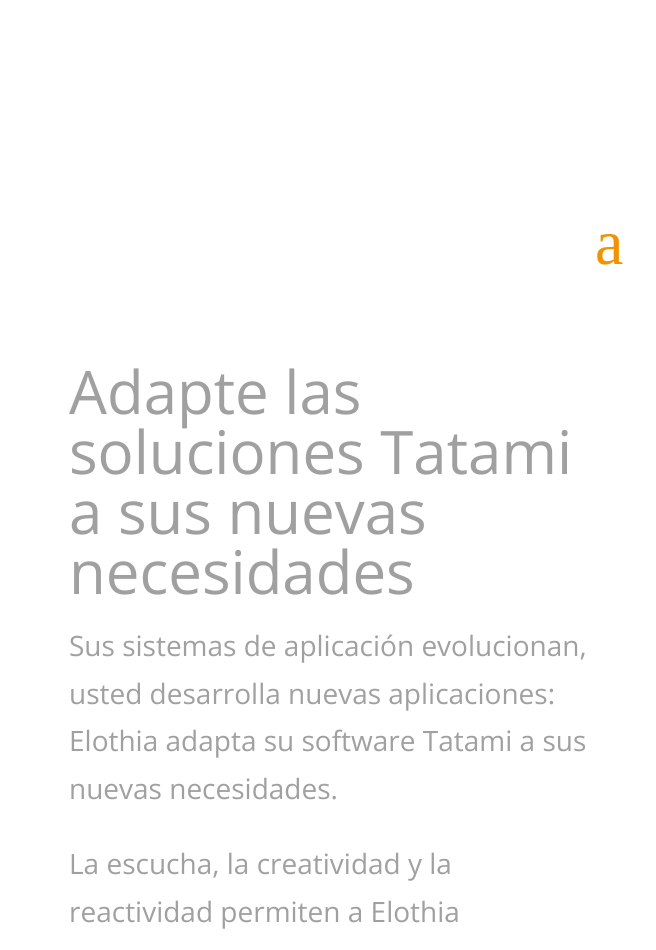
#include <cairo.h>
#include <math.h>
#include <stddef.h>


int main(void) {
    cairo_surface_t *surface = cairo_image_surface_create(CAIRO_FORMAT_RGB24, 656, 950);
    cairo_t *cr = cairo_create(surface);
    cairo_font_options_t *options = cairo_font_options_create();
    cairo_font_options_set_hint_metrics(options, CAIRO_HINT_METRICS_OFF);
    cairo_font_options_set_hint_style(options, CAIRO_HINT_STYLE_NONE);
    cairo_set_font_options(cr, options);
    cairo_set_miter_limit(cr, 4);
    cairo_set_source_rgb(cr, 1, 1, 1);
    cairo_paint(cr);
    cairo_select_font_face(cr, "Liberation Serif", CAIRO_FONT_SLANT_NORMAL, CAIRO_FONT_WEIGHT_NORMAL);
    cairo_set_font_size(cr, 64);
    cairo_set_source_rgb(cr, 0.945, 0.573, 0.008);
    cairo_move_to(cr, 595, 264);
    cairo_show_text(cr, "a");
    cairo_select_font_face(cr, "Open Sans", CAIRO_FONT_SLANT_NORMAL, CAIRO_FONT_WEIGHT_NORMAL);
    cairo_set_font_size(cr, 60);
    cairo_set_source_rgb(cr, 0.627, 0.627, 0.627);
    cairo_move_to(cr, 69, 414);
    cairo_show_text(cr, "Adapte las");
    cairo_move_to(cr, 69, 474);
    cairo_show_text(cr, "soluciones Tatami");
    cairo_move_to(cr, 69, 534);
    cairo_show_text(cr, "a sus nuevas");
    cairo_move_to(cr, 69, 594);
    cairo_show_text(cr, "necesidades");
    cairo_set_font_size(cr, 28);
    cairo_move_to(cr, 69, 656);
    cairo_show_text(cr, "Sus sistemas de aplicación evolucionan,");
    cairo_move_to(cr, 69, 704);
    cairo_show_text(cr, "usted desarrolla nuevas aplicaciones:");
    cairo_move_to(cr, 69, 751);
    cairo_show_text(cr, "Elothia adapta su software Tatami a sus");
    cairo_move_to(cr, 69, 799);
    cairo_show_text(cr, "nuevas necesidades.");
    cairo_move_to(cr, 69, 874);
    cairo_show_text(cr, "La escucha, la creatividad y la");
    cairo_move_to(cr, 69, 922);
    cairo_show_text(cr, "reactividad permiten a Elothia");
    cairo_surface_write_to_png(surface, "page.png");
    cairo_font_options_destroy(options);
    cairo_destroy(cr);
    cairo_surface_destroy(surface);
    return 0;
}
